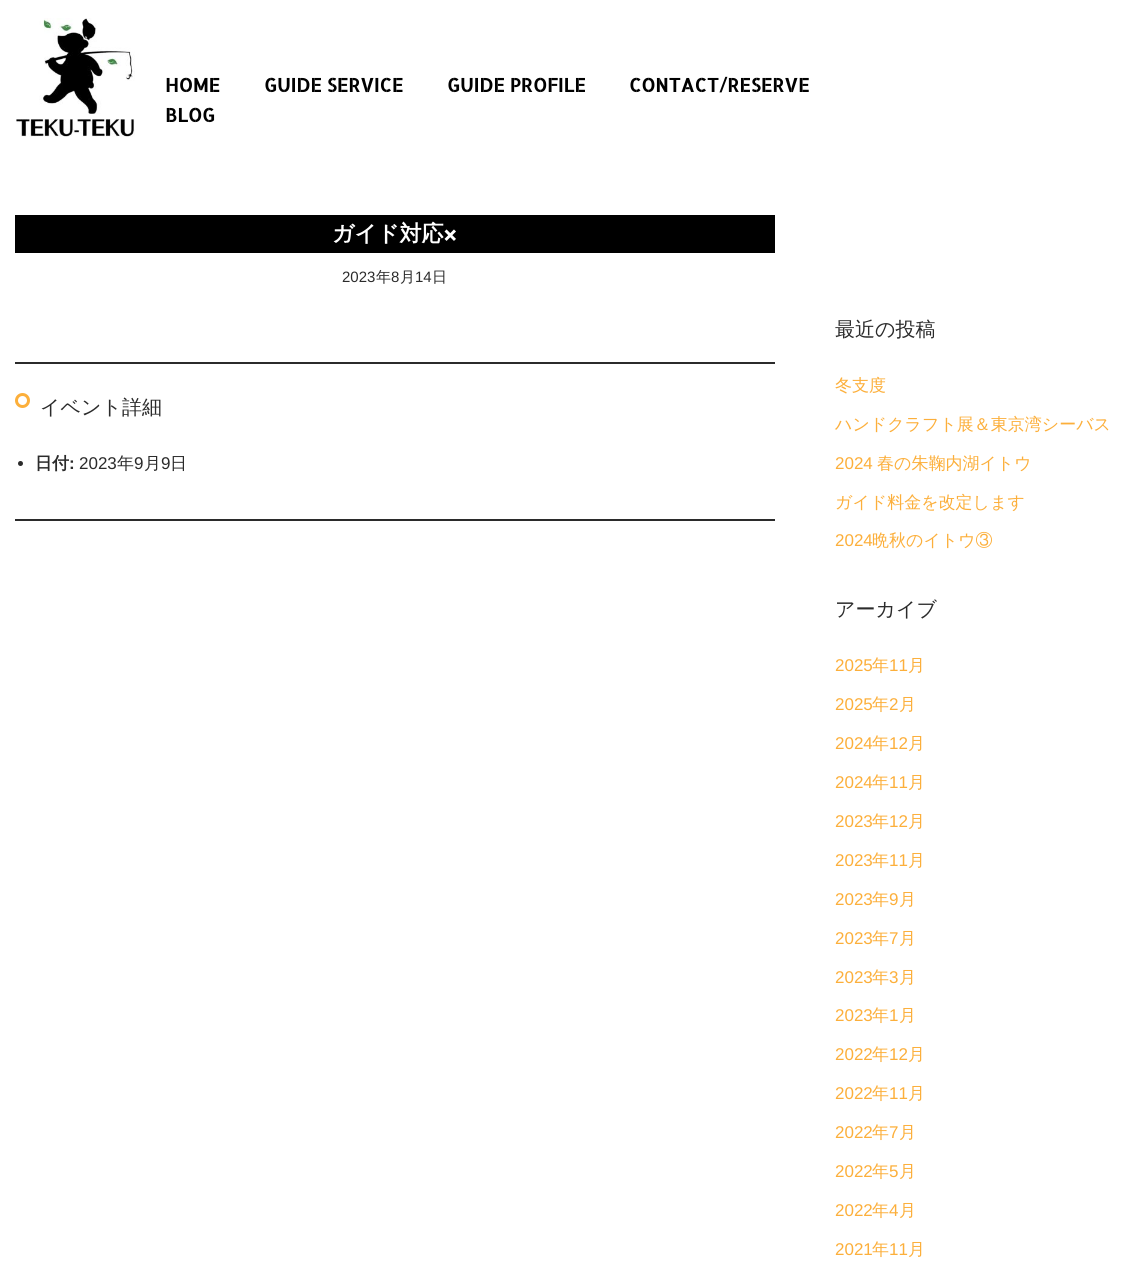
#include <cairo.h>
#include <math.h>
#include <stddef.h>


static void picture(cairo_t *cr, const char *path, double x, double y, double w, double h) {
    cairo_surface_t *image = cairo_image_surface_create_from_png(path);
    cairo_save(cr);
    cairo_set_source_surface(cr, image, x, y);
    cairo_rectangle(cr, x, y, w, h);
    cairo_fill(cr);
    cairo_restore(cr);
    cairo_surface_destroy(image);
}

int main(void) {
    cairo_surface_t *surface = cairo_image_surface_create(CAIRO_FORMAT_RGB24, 1128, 1287);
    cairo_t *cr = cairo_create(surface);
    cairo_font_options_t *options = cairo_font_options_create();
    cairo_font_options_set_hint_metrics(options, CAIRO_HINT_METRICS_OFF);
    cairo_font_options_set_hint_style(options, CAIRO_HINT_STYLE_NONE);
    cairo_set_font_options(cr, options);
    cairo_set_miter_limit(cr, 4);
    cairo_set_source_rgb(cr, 1, 1, 1);
    cairo_paint(cr);
    picture(cr, "img1.png", 16, 18, 119, 119);
    cairo_select_font_face(cr, "Allerta Stencil", CAIRO_FONT_SLANT_NORMAL, CAIRO_FONT_WEIGHT_BOLD);
    cairo_set_font_size(cr, 18.75);
    cairo_set_source_rgb(cr, 0, 0, 0);
    cairo_move_to(cr, 165, 92);
    cairo_show_text(cr, "HOME");
    cairo_move_to(cr, 264, 92);
    cairo_show_text(cr, "GUIDE SERVICE");
    cairo_move_to(cr, 447, 92);
    cairo_show_text(cr, "GUIDE PROFILE");
    cairo_move_to(cr, 629, 92);
    cairo_show_text(cr, "CONTACT/RESERVE");
    cairo_move_to(cr, 165, 122);
    cairo_show_text(cr, "BLOG");
    cairo_rectangle(cr, 15, 215, 760, 38);
    cairo_fill(cr);
    cairo_select_font_face(cr, "WenQuanYi Zen Hei", CAIRO_FONT_SLANT_NORMAL, CAIRO_FONT_WEIGHT_BOLD);
    cairo_set_font_size(cr, 22);
    cairo_set_source_rgb(cr, 1, 1, 1);
    cairo_move_to(cr, 332, 241);
    cairo_show_text(cr, "ガイド対応");
    cairo_select_font_face(cr, "Archivo Black Black", CAIRO_FONT_SLANT_NORMAL, CAIRO_FONT_WEIGHT_NORMAL);
    cairo_move_to(cr, 443, 241);
    cairo_show_text(cr, "×");
    cairo_select_font_face(cr, "Liberation Sans", CAIRO_FONT_SLANT_NORMAL, CAIRO_FONT_WEIGHT_NORMAL);
    cairo_set_font_size(cr, 15);
    cairo_set_source_rgb(cr, 0.169, 0.169, 0.169);
    cairo_move_to(cr, 342, 282);
    cairo_show_text(cr, "2023");
    cairo_select_font_face(cr, "WenQuanYi Zen Hei Medium", CAIRO_FONT_SLANT_NORMAL, CAIRO_FONT_WEIGHT_NORMAL);
    cairo_move_to(cr, 376, 282);
    cairo_show_text(cr, "年");
    cairo_select_font_face(cr, "Liberation Sans", CAIRO_FONT_SLANT_NORMAL, CAIRO_FONT_WEIGHT_NORMAL);
    cairo_move_to(cr, 391, 282);
    cairo_show_text(cr, "8");
    cairo_select_font_face(cr, "WenQuanYi Zen Hei Medium", CAIRO_FONT_SLANT_NORMAL, CAIRO_FONT_WEIGHT_NORMAL);
    cairo_move_to(cr, 400, 282);
    cairo_show_text(cr, "月");
    cairo_select_font_face(cr, "Liberation Sans", CAIRO_FONT_SLANT_NORMAL, CAIRO_FONT_WEIGHT_NORMAL);
    cairo_move_to(cr, 415, 282);
    cairo_show_text(cr, "14");
    cairo_select_font_face(cr, "WenQuanYi Zen Hei Medium", CAIRO_FONT_SLANT_NORMAL, CAIRO_FONT_WEIGHT_NORMAL);
    cairo_move_to(cr, 432, 282);
    cairo_show_text(cr, "日");
    cairo_rectangle(cr, 15, 362, 760, 2);
    cairo_fill(cr);
    cairo_arc(cr, 22.5, 400.5, 6, 0, 2 * M_PI);
    cairo_set_source_rgb(cr, 0.988, 0.686, 0.231);
    cairo_set_line_width(cr, 3);
    cairo_stroke(cr);
    cairo_set_font_size(cr, 20);
    cairo_set_source_rgb(cr, 0.169, 0.169, 0.169);
    cairo_move_to(cr, 40, 414);
    cairo_show_text(cr, "イベント詳細");
    cairo_new_path(cr);
    cairo_arc(cr, 20.5, 463.5, 2.5, 0, 2 * M_PI);
    cairo_fill(cr);
    cairo_select_font_face(cr, "WenQuanYi Zen Hei", CAIRO_FONT_SLANT_NORMAL, CAIRO_FONT_WEIGHT_BOLD);
    cairo_set_font_size(cr, 17);
    cairo_move_to(cr, 35, 469);
    cairo_show_text(cr, "日付");
    cairo_select_font_face(cr, "Liberation Sans", CAIRO_FONT_SLANT_NORMAL, CAIRO_FONT_WEIGHT_BOLD);
    cairo_move_to(cr, 69, 469);
    cairo_show_text(cr, ":");
    cairo_select_font_face(cr, "Liberation Sans", CAIRO_FONT_SLANT_NORMAL, CAIRO_FONT_WEIGHT_NORMAL);
    cairo_move_to(cr, 79, 469);
    cairo_show_text(cr, "2023");
    cairo_select_font_face(cr, "WenQuanYi Zen Hei Medium", CAIRO_FONT_SLANT_NORMAL, CAIRO_FONT_WEIGHT_NORMAL);
    cairo_move_to(cr, 117, 469);
    cairo_show_text(cr, "年");
    cairo_select_font_face(cr, "Liberation Sans", CAIRO_FONT_SLANT_NORMAL, CAIRO_FONT_WEIGHT_NORMAL);
    cairo_move_to(cr, 134, 469);
    cairo_show_text(cr, "9");
    cairo_select_font_face(cr, "WenQuanYi Zen Hei Medium", CAIRO_FONT_SLANT_NORMAL, CAIRO_FONT_WEIGHT_NORMAL);
    cairo_move_to(cr, 144, 469);
    cairo_show_text(cr, "月");
    cairo_select_font_face(cr, "Liberation Sans", CAIRO_FONT_SLANT_NORMAL, CAIRO_FONT_WEIGHT_NORMAL);
    cairo_move_to(cr, 161, 469);
    cairo_show_text(cr, "9");
    cairo_select_font_face(cr, "WenQuanYi Zen Hei Medium", CAIRO_FONT_SLANT_NORMAL, CAIRO_FONT_WEIGHT_NORMAL);
    cairo_move_to(cr, 170, 469);
    cairo_show_text(cr, "日");
    cairo_rectangle(cr, 15, 519, 760, 2);
    cairo_fill(cr);
    cairo_set_font_size(cr, 20);
    cairo_move_to(cr, 835, 336);
    cairo_show_text(cr, "最近の投稿");
    cairo_set_font_size(cr, 17);
    cairo_set_source_rgb(cr, 0.988, 0.686, 0.231);
    cairo_move_to(cr, 835, 391);
    cairo_show_text(cr, "冬支度");
    cairo_move_to(cr, 835, 430);
    cairo_show_text(cr, "ハンドクラフト展＆東京湾シーバス");
    cairo_select_font_face(cr, "Liberation Sans", CAIRO_FONT_SLANT_NORMAL, CAIRO_FONT_WEIGHT_NORMAL);
    cairo_move_to(cr, 835, 469);
    cairo_show_text(cr, "2024");
    cairo_select_font_face(cr, "WenQuanYi Zen Hei Medium", CAIRO_FONT_SLANT_NORMAL, CAIRO_FONT_WEIGHT_NORMAL);
    cairo_move_to(cr, 877, 469);
    cairo_show_text(cr, "春の朱鞠内湖イトウ");
    cairo_move_to(cr, 835, 508);
    cairo_show_text(cr, "ガイド料金を改定します");
    cairo_select_font_face(cr, "Liberation Sans", CAIRO_FONT_SLANT_NORMAL, CAIRO_FONT_WEIGHT_NORMAL);
    cairo_move_to(cr, 835, 546);
    cairo_show_text(cr, "2024");
    cairo_select_font_face(cr, "WenQuanYi Zen Hei Medium", CAIRO_FONT_SLANT_NORMAL, CAIRO_FONT_WEIGHT_NORMAL);
    cairo_move_to(cr, 872, 546);
    cairo_show_text(cr, "晩秋のイトウ③");
    cairo_set_font_size(cr, 20);
    cairo_set_source_rgb(cr, 0.169, 0.169, 0.169);
    cairo_move_to(cr, 835, 616);
    cairo_show_text(cr, "アーカイブ");
    cairo_select_font_face(cr, "Liberation Sans", CAIRO_FONT_SLANT_NORMAL, CAIRO_FONT_WEIGHT_NORMAL);
    cairo_set_font_size(cr, 17);
    cairo_set_source_rgb(cr, 0.988, 0.686, 0.231);
    cairo_move_to(cr, 835, 671);
    cairo_show_text(cr, "2025");
    cairo_select_font_face(cr, "WenQuanYi Zen Hei Medium", CAIRO_FONT_SLANT_NORMAL, CAIRO_FONT_WEIGHT_NORMAL);
    cairo_move_to(cr, 872, 671);
    cairo_show_text(cr, "年");
    cairo_select_font_face(cr, "Liberation Sans", CAIRO_FONT_SLANT_NORMAL, CAIRO_FONT_WEIGHT_NORMAL);
    cairo_move_to(cr, 889, 671);
    cairo_show_text(cr, "11");
    cairo_select_font_face(cr, "WenQuanYi Zen Hei Medium", CAIRO_FONT_SLANT_NORMAL, CAIRO_FONT_WEIGHT_NORMAL);
    cairo_move_to(cr, 908, 671);
    cairo_show_text(cr, "月");
    cairo_select_font_face(cr, "Liberation Sans", CAIRO_FONT_SLANT_NORMAL, CAIRO_FONT_WEIGHT_NORMAL);
    cairo_move_to(cr, 835, 710);
    cairo_show_text(cr, "2025");
    cairo_select_font_face(cr, "WenQuanYi Zen Hei Medium", CAIRO_FONT_SLANT_NORMAL, CAIRO_FONT_WEIGHT_NORMAL);
    cairo_move_to(cr, 872, 710);
    cairo_show_text(cr, "年");
    cairo_select_font_face(cr, "Liberation Sans", CAIRO_FONT_SLANT_NORMAL, CAIRO_FONT_WEIGHT_NORMAL);
    cairo_move_to(cr, 889, 710);
    cairo_show_text(cr, "2");
    cairo_select_font_face(cr, "WenQuanYi Zen Hei Medium", CAIRO_FONT_SLANT_NORMAL, CAIRO_FONT_WEIGHT_NORMAL);
    cairo_move_to(cr, 899, 710);
    cairo_show_text(cr, "月");
    cairo_select_font_face(cr, "Liberation Sans", CAIRO_FONT_SLANT_NORMAL, CAIRO_FONT_WEIGHT_NORMAL);
    cairo_move_to(cr, 835, 749);
    cairo_show_text(cr, "2024");
    cairo_select_font_face(cr, "WenQuanYi Zen Hei Medium", CAIRO_FONT_SLANT_NORMAL, CAIRO_FONT_WEIGHT_NORMAL);
    cairo_move_to(cr, 872, 749);
    cairo_show_text(cr, "年");
    cairo_select_font_face(cr, "Liberation Sans", CAIRO_FONT_SLANT_NORMAL, CAIRO_FONT_WEIGHT_NORMAL);
    cairo_move_to(cr, 889, 749);
    cairo_show_text(cr, "12");
    cairo_select_font_face(cr, "WenQuanYi Zen Hei Medium", CAIRO_FONT_SLANT_NORMAL, CAIRO_FONT_WEIGHT_NORMAL);
    cairo_move_to(cr, 908, 749);
    cairo_show_text(cr, "月");
    cairo_select_font_face(cr, "Liberation Sans", CAIRO_FONT_SLANT_NORMAL, CAIRO_FONT_WEIGHT_NORMAL);
    cairo_move_to(cr, 835, 788);
    cairo_show_text(cr, "2024");
    cairo_select_font_face(cr, "WenQuanYi Zen Hei Medium", CAIRO_FONT_SLANT_NORMAL, CAIRO_FONT_WEIGHT_NORMAL);
    cairo_move_to(cr, 872, 788);
    cairo_show_text(cr, "年");
    cairo_select_font_face(cr, "Liberation Sans", CAIRO_FONT_SLANT_NORMAL, CAIRO_FONT_WEIGHT_NORMAL);
    cairo_move_to(cr, 889, 788);
    cairo_show_text(cr, "11");
    cairo_select_font_face(cr, "WenQuanYi Zen Hei Medium", CAIRO_FONT_SLANT_NORMAL, CAIRO_FONT_WEIGHT_NORMAL);
    cairo_move_to(cr, 908, 788);
    cairo_show_text(cr, "月");
    cairo_select_font_face(cr, "Liberation Sans", CAIRO_FONT_SLANT_NORMAL, CAIRO_FONT_WEIGHT_NORMAL);
    cairo_move_to(cr, 835, 827);
    cairo_show_text(cr, "2023");
    cairo_select_font_face(cr, "WenQuanYi Zen Hei Medium", CAIRO_FONT_SLANT_NORMAL, CAIRO_FONT_WEIGHT_NORMAL);
    cairo_move_to(cr, 872, 827);
    cairo_show_text(cr, "年");
    cairo_select_font_face(cr, "Liberation Sans", CAIRO_FONT_SLANT_NORMAL, CAIRO_FONT_WEIGHT_NORMAL);
    cairo_move_to(cr, 889, 827);
    cairo_show_text(cr, "12");
    cairo_select_font_face(cr, "WenQuanYi Zen Hei Medium", CAIRO_FONT_SLANT_NORMAL, CAIRO_FONT_WEIGHT_NORMAL);
    cairo_move_to(cr, 908, 827);
    cairo_show_text(cr, "月");
    cairo_select_font_face(cr, "Liberation Sans", CAIRO_FONT_SLANT_NORMAL, CAIRO_FONT_WEIGHT_NORMAL);
    cairo_move_to(cr, 835, 866);
    cairo_show_text(cr, "2023");
    cairo_select_font_face(cr, "WenQuanYi Zen Hei Medium", CAIRO_FONT_SLANT_NORMAL, CAIRO_FONT_WEIGHT_NORMAL);
    cairo_move_to(cr, 872, 866);
    cairo_show_text(cr, "年");
    cairo_select_font_face(cr, "Liberation Sans", CAIRO_FONT_SLANT_NORMAL, CAIRO_FONT_WEIGHT_NORMAL);
    cairo_move_to(cr, 889, 866);
    cairo_show_text(cr, "11");
    cairo_select_font_face(cr, "WenQuanYi Zen Hei Medium", CAIRO_FONT_SLANT_NORMAL, CAIRO_FONT_WEIGHT_NORMAL);
    cairo_move_to(cr, 908, 866);
    cairo_show_text(cr, "月");
    cairo_select_font_face(cr, "Liberation Sans", CAIRO_FONT_SLANT_NORMAL, CAIRO_FONT_WEIGHT_NORMAL);
    cairo_move_to(cr, 835, 905);
    cairo_show_text(cr, "2023");
    cairo_select_font_face(cr, "WenQuanYi Zen Hei Medium", CAIRO_FONT_SLANT_NORMAL, CAIRO_FONT_WEIGHT_NORMAL);
    cairo_move_to(cr, 872, 905);
    cairo_show_text(cr, "年");
    cairo_select_font_face(cr, "Liberation Sans", CAIRO_FONT_SLANT_NORMAL, CAIRO_FONT_WEIGHT_NORMAL);
    cairo_move_to(cr, 889, 905);
    cairo_show_text(cr, "9");
    cairo_select_font_face(cr, "WenQuanYi Zen Hei Medium", CAIRO_FONT_SLANT_NORMAL, CAIRO_FONT_WEIGHT_NORMAL);
    cairo_move_to(cr, 899, 905);
    cairo_show_text(cr, "月");
    cairo_select_font_face(cr, "Liberation Sans", CAIRO_FONT_SLANT_NORMAL, CAIRO_FONT_WEIGHT_NORMAL);
    cairo_move_to(cr, 835, 944);
    cairo_show_text(cr, "2023");
    cairo_select_font_face(cr, "WenQuanYi Zen Hei Medium", CAIRO_FONT_SLANT_NORMAL, CAIRO_FONT_WEIGHT_NORMAL);
    cairo_move_to(cr, 872, 944);
    cairo_show_text(cr, "年");
    cairo_select_font_face(cr, "Liberation Sans", CAIRO_FONT_SLANT_NORMAL, CAIRO_FONT_WEIGHT_NORMAL);
    cairo_move_to(cr, 889, 944);
    cairo_show_text(cr, "7");
    cairo_select_font_face(cr, "WenQuanYi Zen Hei Medium", CAIRO_FONT_SLANT_NORMAL, CAIRO_FONT_WEIGHT_NORMAL);
    cairo_move_to(cr, 899, 944);
    cairo_show_text(cr, "月");
    cairo_select_font_face(cr, "Liberation Sans", CAIRO_FONT_SLANT_NORMAL, CAIRO_FONT_WEIGHT_NORMAL);
    cairo_move_to(cr, 835, 983);
    cairo_show_text(cr, "2023");
    cairo_select_font_face(cr, "WenQuanYi Zen Hei Medium", CAIRO_FONT_SLANT_NORMAL, CAIRO_FONT_WEIGHT_NORMAL);
    cairo_move_to(cr, 872, 983);
    cairo_show_text(cr, "年");
    cairo_select_font_face(cr, "Liberation Sans", CAIRO_FONT_SLANT_NORMAL, CAIRO_FONT_WEIGHT_NORMAL);
    cairo_move_to(cr, 889, 983);
    cairo_show_text(cr, "3");
    cairo_select_font_face(cr, "WenQuanYi Zen Hei Medium", CAIRO_FONT_SLANT_NORMAL, CAIRO_FONT_WEIGHT_NORMAL);
    cairo_move_to(cr, 899, 983);
    cairo_show_text(cr, "月");
    cairo_select_font_face(cr, "Liberation Sans", CAIRO_FONT_SLANT_NORMAL, CAIRO_FONT_WEIGHT_NORMAL);
    cairo_move_to(cr, 835, 1021);
    cairo_show_text(cr, "2023");
    cairo_select_font_face(cr, "WenQuanYi Zen Hei Medium", CAIRO_FONT_SLANT_NORMAL, CAIRO_FONT_WEIGHT_NORMAL);
    cairo_move_to(cr, 872, 1021);
    cairo_show_text(cr, "年");
    cairo_select_font_face(cr, "Liberation Sans", CAIRO_FONT_SLANT_NORMAL, CAIRO_FONT_WEIGHT_NORMAL);
    cairo_move_to(cr, 889, 1021);
    cairo_show_text(cr, "1");
    cairo_select_font_face(cr, "WenQuanYi Zen Hei Medium", CAIRO_FONT_SLANT_NORMAL, CAIRO_FONT_WEIGHT_NORMAL);
    cairo_move_to(cr, 899, 1021);
    cairo_show_text(cr, "月");
    cairo_select_font_face(cr, "Liberation Sans", CAIRO_FONT_SLANT_NORMAL, CAIRO_FONT_WEIGHT_NORMAL);
    cairo_move_to(cr, 835, 1060);
    cairo_show_text(cr, "2022");
    cairo_select_font_face(cr, "WenQuanYi Zen Hei Medium", CAIRO_FONT_SLANT_NORMAL, CAIRO_FONT_WEIGHT_NORMAL);
    cairo_move_to(cr, 872, 1060);
    cairo_show_text(cr, "年");
    cairo_select_font_face(cr, "Liberation Sans", CAIRO_FONT_SLANT_NORMAL, CAIRO_FONT_WEIGHT_NORMAL);
    cairo_move_to(cr, 889, 1060);
    cairo_show_text(cr, "12");
    cairo_select_font_face(cr, "WenQuanYi Zen Hei Medium", CAIRO_FONT_SLANT_NORMAL, CAIRO_FONT_WEIGHT_NORMAL);
    cairo_move_to(cr, 908, 1060);
    cairo_show_text(cr, "月");
    cairo_select_font_face(cr, "Liberation Sans", CAIRO_FONT_SLANT_NORMAL, CAIRO_FONT_WEIGHT_NORMAL);
    cairo_move_to(cr, 835, 1099);
    cairo_show_text(cr, "2022");
    cairo_select_font_face(cr, "WenQuanYi Zen Hei Medium", CAIRO_FONT_SLANT_NORMAL, CAIRO_FONT_WEIGHT_NORMAL);
    cairo_move_to(cr, 872, 1099);
    cairo_show_text(cr, "年");
    cairo_select_font_face(cr, "Liberation Sans", CAIRO_FONT_SLANT_NORMAL, CAIRO_FONT_WEIGHT_NORMAL);
    cairo_move_to(cr, 889, 1099);
    cairo_show_text(cr, "11");
    cairo_select_font_face(cr, "WenQuanYi Zen Hei Medium", CAIRO_FONT_SLANT_NORMAL, CAIRO_FONT_WEIGHT_NORMAL);
    cairo_move_to(cr, 908, 1099);
    cairo_show_text(cr, "月");
    cairo_select_font_face(cr, "Liberation Sans", CAIRO_FONT_SLANT_NORMAL, CAIRO_FONT_WEIGHT_NORMAL);
    cairo_move_to(cr, 835, 1138);
    cairo_show_text(cr, "2022");
    cairo_select_font_face(cr, "WenQuanYi Zen Hei Medium", CAIRO_FONT_SLANT_NORMAL, CAIRO_FONT_WEIGHT_NORMAL);
    cairo_move_to(cr, 872, 1138);
    cairo_show_text(cr, "年");
    cairo_select_font_face(cr, "Liberation Sans", CAIRO_FONT_SLANT_NORMAL, CAIRO_FONT_WEIGHT_NORMAL);
    cairo_move_to(cr, 889, 1138);
    cairo_show_text(cr, "7");
    cairo_select_font_face(cr, "WenQuanYi Zen Hei Medium", CAIRO_FONT_SLANT_NORMAL, CAIRO_FONT_WEIGHT_NORMAL);
    cairo_move_to(cr, 899, 1138);
    cairo_show_text(cr, "月");
    cairo_select_font_face(cr, "Liberation Sans", CAIRO_FONT_SLANT_NORMAL, CAIRO_FONT_WEIGHT_NORMAL);
    cairo_move_to(cr, 835, 1177);
    cairo_show_text(cr, "2022");
    cairo_select_font_face(cr, "WenQuanYi Zen Hei Medium", CAIRO_FONT_SLANT_NORMAL, CAIRO_FONT_WEIGHT_NORMAL);
    cairo_move_to(cr, 872, 1177);
    cairo_show_text(cr, "年");
    cairo_select_font_face(cr, "Liberation Sans", CAIRO_FONT_SLANT_NORMAL, CAIRO_FONT_WEIGHT_NORMAL);
    cairo_move_to(cr, 889, 1177);
    cairo_show_text(cr, "5");
    cairo_select_font_face(cr, "WenQuanYi Zen Hei Medium", CAIRO_FONT_SLANT_NORMAL, CAIRO_FONT_WEIGHT_NORMAL);
    cairo_move_to(cr, 899, 1177);
    cairo_show_text(cr, "月");
    cairo_select_font_face(cr, "Liberation Sans", CAIRO_FONT_SLANT_NORMAL, CAIRO_FONT_WEIGHT_NORMAL);
    cairo_move_to(cr, 835, 1216);
    cairo_show_text(cr, "2022");
    cairo_select_font_face(cr, "WenQuanYi Zen Hei Medium", CAIRO_FONT_SLANT_NORMAL, CAIRO_FONT_WEIGHT_NORMAL);
    cairo_move_to(cr, 872, 1216);
    cairo_show_text(cr, "年");
    cairo_select_font_face(cr, "Liberation Sans", CAIRO_FONT_SLANT_NORMAL, CAIRO_FONT_WEIGHT_NORMAL);
    cairo_move_to(cr, 889, 1216);
    cairo_show_text(cr, "4");
    cairo_select_font_face(cr, "WenQuanYi Zen Hei Medium", CAIRO_FONT_SLANT_NORMAL, CAIRO_FONT_WEIGHT_NORMAL);
    cairo_move_to(cr, 899, 1216);
    cairo_show_text(cr, "月");
    cairo_select_font_face(cr, "Liberation Sans", CAIRO_FONT_SLANT_NORMAL, CAIRO_FONT_WEIGHT_NORMAL);
    cairo_move_to(cr, 835, 1255);
    cairo_show_text(cr, "2021");
    cairo_select_font_face(cr, "WenQuanYi Zen Hei Medium", CAIRO_FONT_SLANT_NORMAL, CAIRO_FONT_WEIGHT_NORMAL);
    cairo_move_to(cr, 872, 1255);
    cairo_show_text(cr, "年");
    cairo_select_font_face(cr, "Liberation Sans", CAIRO_FONT_SLANT_NORMAL, CAIRO_FONT_WEIGHT_NORMAL);
    cairo_move_to(cr, 889, 1255);
    cairo_show_text(cr, "11");
    cairo_select_font_face(cr, "WenQuanYi Zen Hei Medium", CAIRO_FONT_SLANT_NORMAL, CAIRO_FONT_WEIGHT_NORMAL);
    cairo_move_to(cr, 908, 1255);
    cairo_show_text(cr, "月");
    cairo_surface_write_to_png(surface, "page.png");
    cairo_font_options_destroy(options);
    cairo_destroy(cr);
    cairo_surface_destroy(surface);
    return 0;
}
